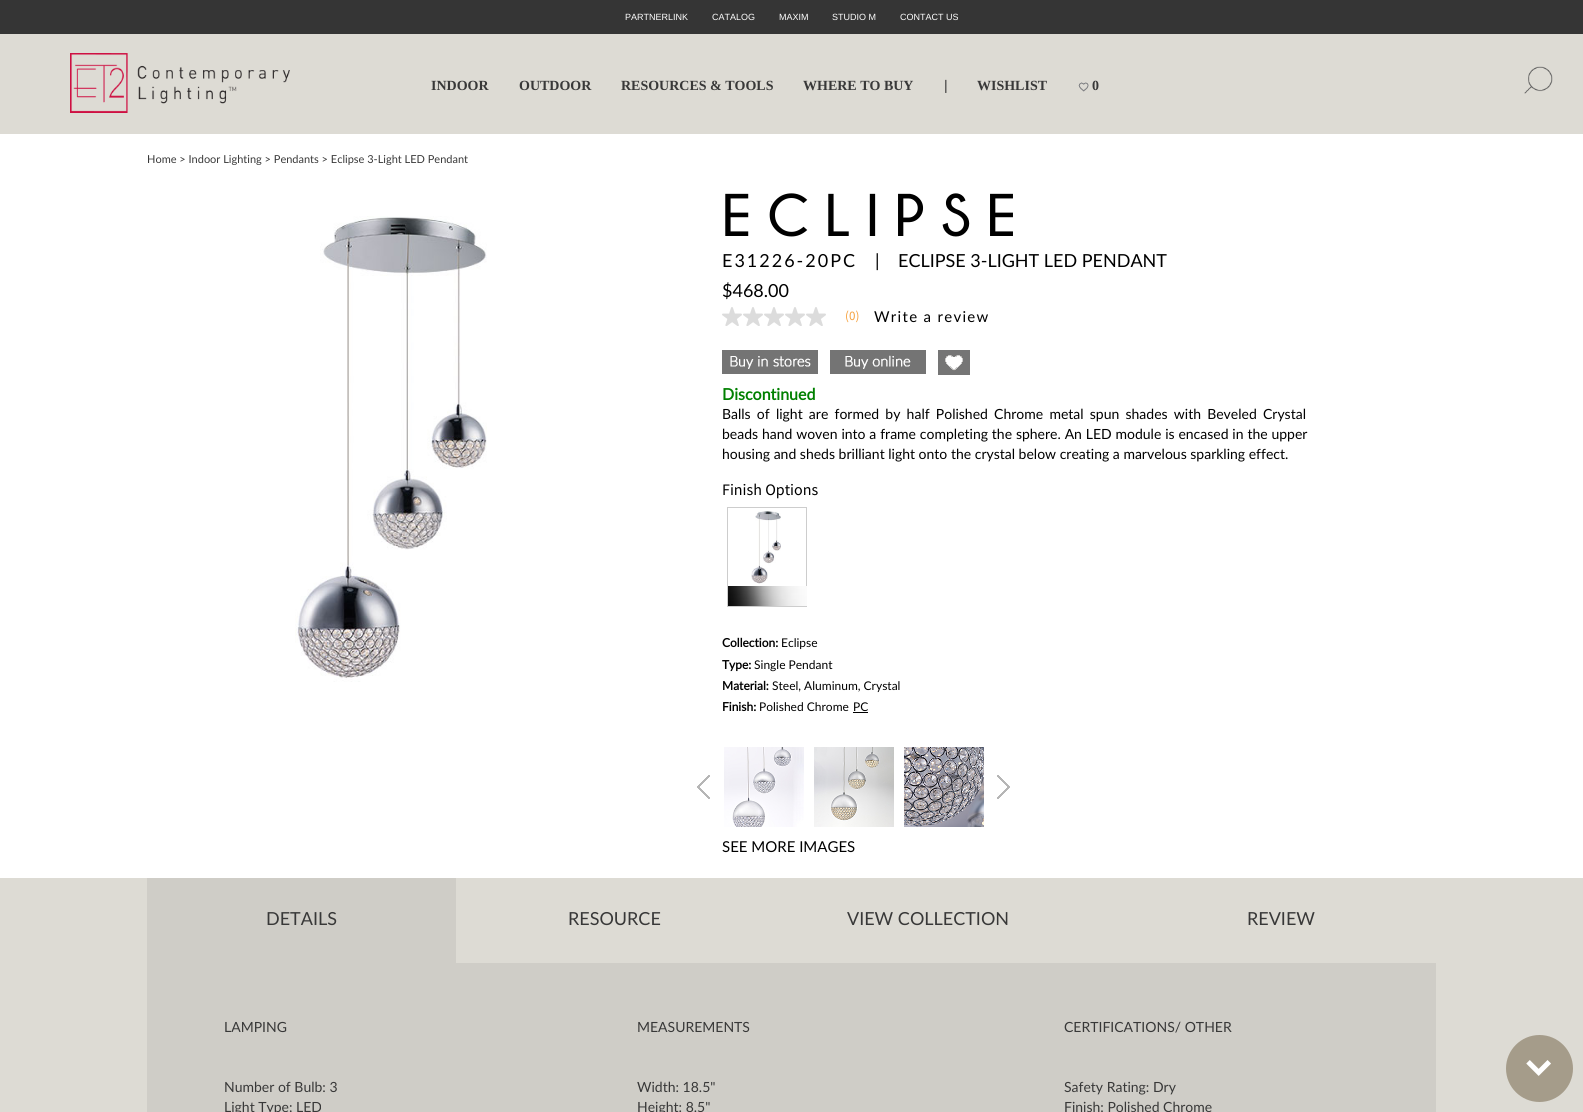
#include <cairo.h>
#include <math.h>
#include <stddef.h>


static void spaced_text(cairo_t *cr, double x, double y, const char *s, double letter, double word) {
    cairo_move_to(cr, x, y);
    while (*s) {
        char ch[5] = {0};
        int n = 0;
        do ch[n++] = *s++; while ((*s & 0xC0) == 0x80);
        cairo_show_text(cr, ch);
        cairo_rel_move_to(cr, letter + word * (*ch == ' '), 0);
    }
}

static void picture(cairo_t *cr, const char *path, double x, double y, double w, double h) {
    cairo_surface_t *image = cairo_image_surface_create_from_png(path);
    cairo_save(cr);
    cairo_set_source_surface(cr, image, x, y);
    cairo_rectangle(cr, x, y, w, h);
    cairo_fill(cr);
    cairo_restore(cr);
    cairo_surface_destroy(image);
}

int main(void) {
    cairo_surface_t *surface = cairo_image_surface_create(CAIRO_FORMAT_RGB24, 1583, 1112);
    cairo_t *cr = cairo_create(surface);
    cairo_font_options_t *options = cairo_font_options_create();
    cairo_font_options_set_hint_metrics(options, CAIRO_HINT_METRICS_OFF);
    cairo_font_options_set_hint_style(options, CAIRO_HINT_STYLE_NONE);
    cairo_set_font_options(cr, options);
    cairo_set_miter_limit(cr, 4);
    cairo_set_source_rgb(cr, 0.867, 0.859, 0.831);
    cairo_paint(cr);
    cairo_set_source_rgb(cr, 0.208, 0.208, 0.208);
    cairo_rectangle(cr, 0, 0, 1583, 34);
    cairo_fill(cr);
    cairo_select_font_face(cr, "Liberation Sans", CAIRO_FONT_SLANT_NORMAL, CAIRO_FONT_WEIGHT_NORMAL);
    cairo_set_font_size(cr, 9);
    cairo_set_source_rgb(cr, 1, 1, 1);
    cairo_move_to(cr, 625, 20);
    cairo_show_text(cr, "PARTNERLINK");
    cairo_move_to(cr, 712, 20);
    cairo_show_text(cr, "CATALOG");
    cairo_move_to(cr, 779, 20);
    cairo_show_text(cr, "MAXIM");
    cairo_move_to(cr, 832, 20);
    cairo_show_text(cr, "STUDIO M");
    cairo_move_to(cr, 900, 20);
    cairo_show_text(cr, "CONTACT US");
    picture(cr, "img1.png", 70, 53, 220, 60);
    cairo_select_font_face(cr, "Liberation Serif", CAIRO_FONT_SLANT_NORMAL, CAIRO_FONT_WEIGHT_BOLD);
    cairo_set_font_size(cr, 14);
    cairo_set_source_rgb(cr, 0.22, 0.22, 0.22);
    cairo_move_to(cr, 431, 90);
    cairo_show_text(cr, "INDOOR");
    cairo_move_to(cr, 519, 90);
    cairo_show_text(cr, "OUTDOOR");
    cairo_move_to(cr, 621, 90);
    cairo_show_text(cr, "RESOURCES & TOOLS");
    cairo_move_to(cr, 803, 90);
    cairo_show_text(cr, "WHERE TO BUY");
    cairo_select_font_face(cr, "Liberation Sans", CAIRO_FONT_SLANT_NORMAL, CAIRO_FONT_WEIGHT_NORMAL);
    cairo_move_to(cr, 944, 90);
    cairo_show_text(cr, "|");
    cairo_select_font_face(cr, "Liberation Serif", CAIRO_FONT_SLANT_NORMAL, CAIRO_FONT_WEIGHT_BOLD);
    cairo_move_to(cr, 977, 90);
    cairo_show_text(cr, "WISHLIST");
    picture(cr, "img2.png", 1078, 82, 11, 10);
    cairo_move_to(cr, 1092, 90);
    cairo_show_text(cr, "0");
    picture(cr, "img3.png", 1524, 66, 29, 28);
    cairo_set_source_rgb(cr, 1, 1, 1);
    cairo_rectangle(cr, 0, 134, 1583, 744);
    cairo_fill(cr);
    cairo_select_font_face(cr, "Lato", CAIRO_FONT_SLANT_NORMAL, CAIRO_FONT_WEIGHT_NORMAL);
    cairo_set_font_size(cr, 11);
    cairo_set_source_rgb(cr, 0.22, 0.22, 0.22);
    cairo_move_to(cr, 147, 163);
    cairo_show_text(cr, "Home > Indoor Lighting > Pendants > Eclipse 3-Light LED Pendant");
    picture(cr, "img4.png", 295, 216, 192, 466);
    cairo_select_font_face(cr, "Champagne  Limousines", CAIRO_FONT_SLANT_NORMAL, CAIRO_FONT_WEIGHT_BOLD);
    cairo_set_font_size(cr, 60);
    cairo_set_source_rgb(cr, 0, 0, 0);
    spaced_text(cr, 722, 236, "ECLIPSE", 16, 0);
    cairo_select_font_face(cr, "Lato", CAIRO_FONT_SLANT_NORMAL, CAIRO_FONT_WEIGHT_NORMAL);
    cairo_set_font_size(cr, 18);
    spaced_text(cr, 722, 267, "E31226-20PC", 2, 0);
    cairo_move_to(cr, 875, 267);
    cairo_show_text(cr, "|");
    cairo_move_to(cr, 898, 267);
    cairo_show_text(cr, "ECLIPSE 3-LIGHT LED PENDANT");
    cairo_move_to(cr, 722, 297);
    cairo_show_text(cr, "$468.00");
    picture(cr, "img5.png", 722, 307, 20, 19);
    picture(cr, "img5.png", 743, 307, 20, 19);
    picture(cr, "img5.png", 764, 307, 20, 19);
    picture(cr, "img5.png", 785, 307, 20, 19);
    picture(cr, "img5.png", 806, 307, 20, 19);
    cairo_select_font_face(cr, "Source Sans Pro", CAIRO_FONT_SLANT_NORMAL, CAIRO_FONT_WEIGHT_NORMAL);
    cairo_set_font_size(cr, 13);
    cairo_set_source_rgb(cr, 0.961, 0.635, 0.247);
    cairo_move_to(cr, 845, 320);
    cairo_show_text(cr, "(0)");
    cairo_select_font_face(cr, "Lato", CAIRO_FONT_SLANT_NORMAL, CAIRO_FONT_WEIGHT_NORMAL);
    cairo_set_font_size(cr, 15);
    cairo_set_source_rgb(cr, 0, 0, 0);
    spaced_text(cr, 874, 322, "Write a review", 1.3, 0);
    picture(cr, "img6.png", 722, 350, 96, 24);
    picture(cr, "img7.png", 830, 350, 96, 24);
    picture(cr, "img8.png", 938, 350, 32, 25);
    cairo_select_font_face(cr, "Lato", CAIRO_FONT_SLANT_NORMAL, CAIRO_FONT_WEIGHT_BOLD);
    cairo_set_font_size(cr, 16);
    cairo_set_source_rgb(cr, 0, 0.502, 0);
    cairo_move_to(cr, 722, 400);
    cairo_show_text(cr, "Discontinued");
    cairo_select_font_face(cr, "Lato", CAIRO_FONT_SLANT_NORMAL, CAIRO_FONT_WEIGHT_NORMAL);
    cairo_set_font_size(cr, 14);
    cairo_set_source_rgb(cr, 0, 0, 0);
    spaced_text(cr, 722, 419, "Balls of light are formed by half Polished Chrome metal spun shades with Beveled Crystal", 0, 2.6);
    spaced_text(cr, 722, 439, "beads hand woven into a frame completing the sphere. An LED module is encased in the upper", 0, 0.25);
    cairo_move_to(cr, 722, 459);
    cairo_show_text(cr, "housing and sheds brilliant light onto the crystal below creating a marvelous sparkling effect.");
    cairo_select_font_face(cr, "Source Sans Pro", CAIRO_FONT_SLANT_NORMAL, CAIRO_FONT_WEIGHT_NORMAL);
    cairo_set_font_size(cr, 16);
    cairo_move_to(cr, 722, 495);
    cairo_show_text(cr, "Finish Options");
    cairo_rectangle(cr, 727.5, 507.5, 79, 99);
    cairo_set_source_rgb(cr, 0.804, 0.804, 0.804);
    cairo_set_line_width(cr, 1);
    cairo_stroke(cr);
    picture(cr, "img9.png", 751, 511, 30, 73);
    picture(cr, "img10.png", 728, 586, 79, 20);
    cairo_select_font_face(cr, "Lato", CAIRO_FONT_SLANT_NORMAL, CAIRO_FONT_WEIGHT_BOLD);
    cairo_set_font_size(cr, 12);
    cairo_set_source_rgb(cr, 0, 0, 0);
    cairo_move_to(cr, 722, 647);
    cairo_show_text(cr, "Collection:");
    cairo_select_font_face(cr, "Lato", CAIRO_FONT_SLANT_NORMAL, CAIRO_FONT_WEIGHT_NORMAL);
    cairo_move_to(cr, 781, 647);
    cairo_show_text(cr, "Eclipse");
    cairo_select_font_face(cr, "Lato", CAIRO_FONT_SLANT_NORMAL, CAIRO_FONT_WEIGHT_BOLD);
    cairo_move_to(cr, 722, 669);
    cairo_show_text(cr, "Type:");
    cairo_select_font_face(cr, "Lato", CAIRO_FONT_SLANT_NORMAL, CAIRO_FONT_WEIGHT_NORMAL);
    cairo_move_to(cr, 754, 669);
    cairo_show_text(cr, "Single Pendant");
    cairo_select_font_face(cr, "Lato", CAIRO_FONT_SLANT_NORMAL, CAIRO_FONT_WEIGHT_BOLD);
    cairo_move_to(cr, 722, 690);
    cairo_show_text(cr, "Material:");
    cairo_select_font_face(cr, "Lato", CAIRO_FONT_SLANT_NORMAL, CAIRO_FONT_WEIGHT_NORMAL);
    cairo_move_to(cr, 772, 690);
    cairo_show_text(cr, "Steel, Aluminum, Crystal");
    cairo_select_font_face(cr, "Lato", CAIRO_FONT_SLANT_NORMAL, CAIRO_FONT_WEIGHT_BOLD);
    cairo_move_to(cr, 722, 711);
    cairo_show_text(cr, "Finish:");
    cairo_select_font_face(cr, "Lato", CAIRO_FONT_SLANT_NORMAL, CAIRO_FONT_WEIGHT_NORMAL);
    cairo_move_to(cr, 759, 711);
    cairo_show_text(cr, "Polished Chrome");
    cairo_move_to(cr, 853, 711);
    cairo_show_text(cr, "PC");
    cairo_rectangle(cr, 853, 712, 15, 1);
    cairo_fill(cr);
    picture(cr, "img11.png", 697, 775, 13, 24);
    picture(cr, "img12.png", 724, 747, 80, 80);
    picture(cr, "img13.png", 814, 747, 80, 80);
    picture(cr, "img14.png", 904, 747, 80, 80);
    picture(cr, "img15.png", 997, 775, 13, 24);
    cairo_set_font_size(cr, 15);
    cairo_move_to(cr, 722, 852);
    cairo_show_text(cr, "SEE MORE IMAGES");
    cairo_set_source_rgb(cr, 0.812, 0.804, 0.78);
    cairo_rectangle(cr, 147, 878, 309, 85);
    cairo_fill(cr);
    cairo_set_font_size(cr, 18);
    cairo_set_source_rgb(cr, 0.22, 0.22, 0.22);
    cairo_move_to(cr, 266, 925);
    cairo_show_text(cr, "DETAILS");
    cairo_move_to(cr, 568, 925);
    cairo_show_text(cr, "RESOURCE");
    cairo_move_to(cr, 847, 925);
    cairo_show_text(cr, "VIEW COLLECTION");
    cairo_move_to(cr, 1247, 925);
    cairo_show_text(cr, "REVIEW");
    cairo_set_source_rgb(cr, 0.812, 0.804, 0.78);
    cairo_rectangle(cr, 147, 963, 1289, 149);
    cairo_fill(cr);
    cairo_set_font_size(cr, 14);
    cairo_set_source_rgb(cr, 0.22, 0.22, 0.22);
    cairo_move_to(cr, 224, 1032);
    cairo_show_text(cr, "LAMPING");
    cairo_move_to(cr, 224, 1092);
    cairo_show_text(cr, "Number of Bulb: 3");
    cairo_move_to(cr, 224, 1112);
    cairo_show_text(cr, "Light Type: LED");
    cairo_move_to(cr, 637, 1032);
    cairo_show_text(cr, "MEASUREMENTS");
    cairo_move_to(cr, 637, 1092);
    cairo_show_text(cr, "Width: 18.5\"");
    cairo_move_to(cr, 637, 1112);
    cairo_show_text(cr, "Height: 8.5\"");
    cairo_move_to(cr, 1064, 1032);
    cairo_show_text(cr, "CERTIFICATIONS/ OTHER");
    cairo_move_to(cr, 1064, 1092);
    cairo_show_text(cr, "Safety Rating: Dry");
    cairo_move_to(cr, 1064, 1112);
    cairo_show_text(cr, "Finish: Polished Chrome");
    cairo_set_source_rgb(cr, 0.647, 0.612, 0.541);
    cairo_new_path(cr);
    cairo_arc(cr, 1539.5, 1068.5, 33.5, 0, 2 * M_PI);
    cairo_fill(cr);
    picture(cr, "img16.png", 1526, 1060, 25, 16);
    cairo_surface_write_to_png(surface, "page.png");
    cairo_font_options_destroy(options);
    cairo_destroy(cr);
    cairo_surface_destroy(surface);
    return 0;
}
